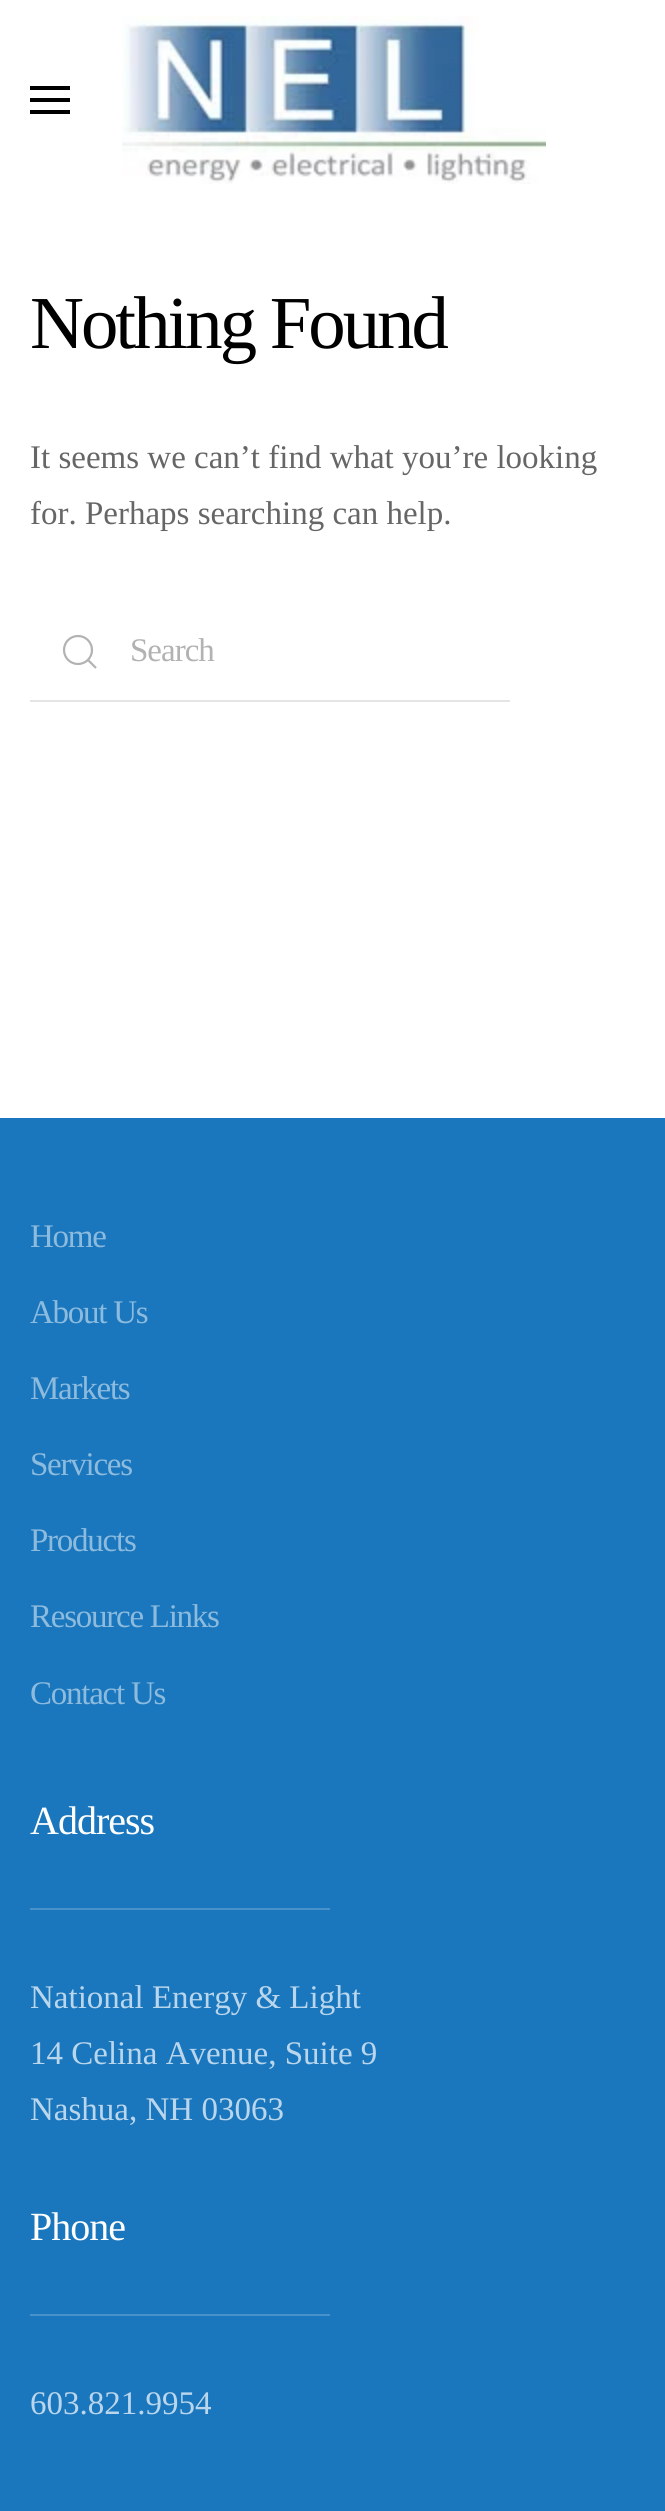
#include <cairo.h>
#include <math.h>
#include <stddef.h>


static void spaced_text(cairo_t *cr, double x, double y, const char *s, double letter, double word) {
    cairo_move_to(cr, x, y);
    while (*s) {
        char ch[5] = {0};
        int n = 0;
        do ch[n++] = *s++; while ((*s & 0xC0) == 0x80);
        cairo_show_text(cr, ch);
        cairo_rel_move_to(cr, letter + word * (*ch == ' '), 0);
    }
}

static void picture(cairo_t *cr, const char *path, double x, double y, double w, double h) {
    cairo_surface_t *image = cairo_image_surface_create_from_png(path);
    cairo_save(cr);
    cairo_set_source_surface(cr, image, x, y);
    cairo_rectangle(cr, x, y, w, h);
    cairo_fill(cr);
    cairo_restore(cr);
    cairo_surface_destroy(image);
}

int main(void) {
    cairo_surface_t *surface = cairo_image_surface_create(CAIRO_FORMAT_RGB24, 665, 2511);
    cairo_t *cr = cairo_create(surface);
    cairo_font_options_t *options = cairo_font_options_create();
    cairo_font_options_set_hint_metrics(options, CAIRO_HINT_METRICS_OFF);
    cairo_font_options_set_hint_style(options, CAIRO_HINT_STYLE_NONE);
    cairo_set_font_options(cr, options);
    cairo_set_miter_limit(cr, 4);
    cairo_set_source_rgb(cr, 1, 1, 1);
    cairo_paint(cr);
    cairo_set_source_rgb(cr, 0, 0, 0);
    cairo_rectangle(cr, 30, 86, 40, 4);
    cairo_fill(cr);
    cairo_rectangle(cr, 30, 98, 40, 4);
    cairo_fill(cr);
    cairo_rectangle(cr, 30, 110, 40, 4);
    cairo_fill(cr);
    picture(cr, "img1.png", 122, 16, 424, 168);
    cairo_select_font_face(cr, "Liberation Serif", CAIRO_FONT_SLANT_NORMAL, CAIRO_FONT_WEIGHT_NORMAL);
    cairo_set_font_size(cr, 74.75);
    spaced_text(cr, 30, 348, "Nothing Found", -3, 0);
    cairo_set_font_size(cr, 33);
    cairo_set_source_rgb(cr, 0.4, 0.4, 0.4);
    cairo_move_to(cr, 30, 468);
    cairo_show_text(cr, "It seems we can’t find what you’re looking");
    cairo_move_to(cr, 30, 524);
    cairo_show_text(cr, "for. Perhaps searching can help.");
    cairo_new_path(cr);
    cairo_arc(cr, 78, 650, 14, 0, 2 * M_PI);
    cairo_set_source_rgb(cr, 0.698, 0.698, 0.698);
    cairo_set_line_width(cr, 2.2);
    cairo_stroke(cr);
    cairo_new_path(cr);
    cairo_move_to(cr, 88, 660);
    cairo_line_to(cr, 96, 668);
    cairo_close_path(cr);
    cairo_stroke(cr);
    cairo_set_source_rgb(cr, 0.898, 0.898, 0.898);
    cairo_rectangle(cr, 30, 700, 480, 2);
    cairo_fill(cr);
    cairo_set_source_rgb(cr, 0.698, 0.698, 0.698);
    spaced_text(cr, 130, 661, "Search", -1, 0);
    cairo_set_source_rgb(cr, 0.102, 0.467, 0.741);
    cairo_rectangle(cr, 0, 1118, 665, 1393);
    cairo_fill(cr);
    cairo_set_source_rgb(cr, 0.553, 0.733, 0.871);
    spaced_text(cr, 30, 1247, "Home", -1.25, 0);
    spaced_text(cr, 30, 1323, "About Us", -1.25, 0);
    spaced_text(cr, 30, 1399, "Markets", -1.25, 0);
    spaced_text(cr, 30, 1475, "Services", -1.25, 0);
    spaced_text(cr, 30, 1551, "Products", -1.25, 0);
    spaced_text(cr, 30, 1627, "Resource Links", -1.25, 0);
    spaced_text(cr, 30, 1704, "Contact Us", -1.25, 0);
    cairo_set_font_size(cr, 40);
    cairo_set_source_rgb(cr, 1, 1, 1);
    spaced_text(cr, 30, 1834, "Address", -1, 0);
    cairo_set_source_rgb(cr, 0.282, 0.573, 0.792);
    cairo_rectangle(cr, 30, 1908, 300, 2);
    cairo_fill(cr);
    cairo_set_font_size(cr, 33);
    cairo_set_source_rgb(cr, 0.729, 0.839, 0.922);
    cairo_move_to(cr, 30, 2008);
    cairo_show_text(cr, "National Energy & Light");
    cairo_move_to(cr, 30, 2064);
    cairo_show_text(cr, "14 Celina Avenue, Suite 9");
    cairo_move_to(cr, 30, 2120);
    cairo_show_text(cr, "Nashua, NH 03063");
    cairo_set_font_size(cr, 40);
    cairo_set_source_rgb(cr, 1, 1, 1);
    spaced_text(cr, 30, 2240, "Phone", -1, 0);
    cairo_set_source_rgb(cr, 0.282, 0.573, 0.792);
    cairo_rectangle(cr, 30, 2314, 300, 2);
    cairo_fill(cr);
    cairo_set_font_size(cr, 33);
    cairo_set_source_rgb(cr, 0.729, 0.839, 0.922);
    cairo_move_to(cr, 30, 2414);
    cairo_show_text(cr, "603.821.9954");
    cairo_surface_write_to_png(surface, "page.png");
    cairo_font_options_destroy(options);
    cairo_destroy(cr);
    cairo_surface_destroy(surface);
    return 0;
}
